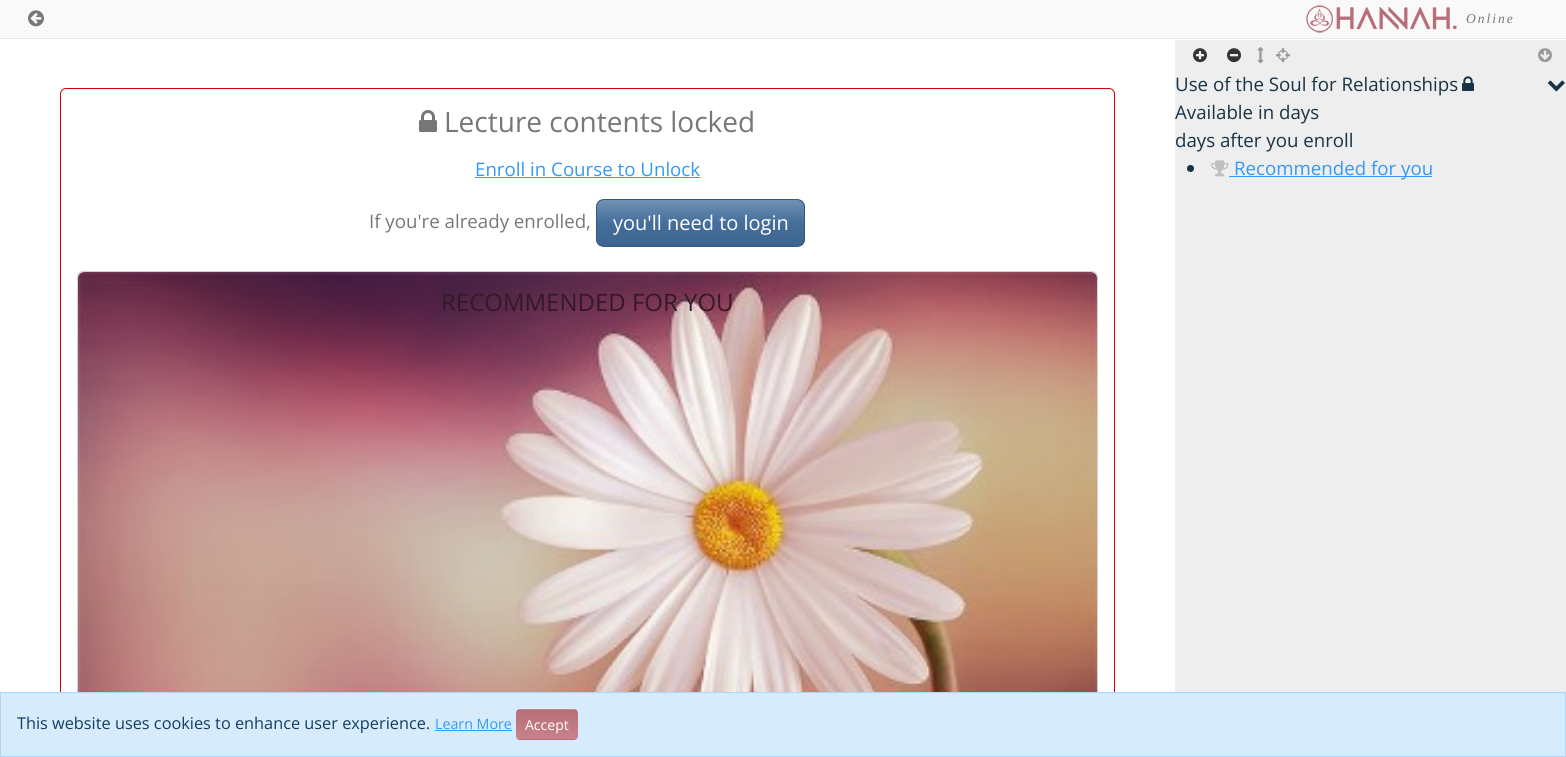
#include <cairo.h>
#include <math.h>
#include <stddef.h>


static void spaced_text(cairo_t *cr, double x, double y, const char *s, double letter, double word) {
    cairo_move_to(cr, x, y);
    while (*s) {
        char ch[5] = {0};
        int n = 0;
        do ch[n++] = *s++; while ((*s & 0xC0) == 0x80);
        cairo_show_text(cr, ch);
        cairo_rel_move_to(cr, letter + word * (*ch == ' '), 0);
    }
}

static void round_rect(cairo_t *cr, double x, double y, double w, double h, double r) {
    cairo_new_sub_path(cr);
    cairo_arc(cr, x + w - r, y + h - r, r, 0, M_PI / 2);
    cairo_arc(cr, x + r, y + h - r, r, M_PI / 2, M_PI);
    cairo_arc(cr, x + r, y + r, r, M_PI, 1.5 * M_PI);
    cairo_arc(cr, x + w - r, y + r, r, 1.5 * M_PI, 2 * M_PI);
    cairo_close_path(cr);
}

static void picture(cairo_t *cr, const char *path, double x, double y, double w, double h) {
    cairo_surface_t *image = cairo_image_surface_create_from_png(path);
    cairo_save(cr);
    cairo_set_source_surface(cr, image, x, y);
    cairo_rectangle(cr, x, y, w, h);
    cairo_fill(cr);
    cairo_restore(cr);
    cairo_surface_destroy(image);
}

int main(void) {
    cairo_surface_t *surface = cairo_image_surface_create(CAIRO_FORMAT_RGB24, 1566, 757);
    cairo_t *cr = cairo_create(surface);
    cairo_font_options_t *options = cairo_font_options_create();
    cairo_font_options_set_hint_metrics(options, CAIRO_HINT_METRICS_OFF);
    cairo_font_options_set_hint_style(options, CAIRO_HINT_STYLE_NONE);
    cairo_set_font_options(cr, options);
    cairo_set_miter_limit(cr, 4);
    cairo_pattern_t *gradient;
    cairo_set_source_rgb(cr, 1, 1, 1);
    cairo_paint(cr);
    cairo_set_source_rgb(cr, 0.973, 0.973, 0.973);
    cairo_rectangle(cr, 0, 0, 1566, 38);
    cairo_fill(cr);
    cairo_set_source_rgb(cr, 0.906, 0.906, 0.906);
    cairo_rectangle(cr, 0, 38, 1566, 1);
    cairo_fill(cr);
    picture(cr, "img1.png", 28, 10, 16, 17);
    picture(cr, "img2.png", 1306, 5, 151, 28);
    cairo_select_font_face(cr, "Liberation Serif", CAIRO_FONT_SLANT_ITALIC, CAIRO_FONT_WEIGHT_NORMAL);
    cairo_set_font_size(cr, 13.5);
    cairo_set_source_rgb(cr, 0.467, 0.467, 0.467);
    spaced_text(cr, 1466, 23, "Online", 2, 0);
    round_rect(cr, 60.5, 88.5, 1054, 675, 5.5);
    cairo_set_source_rgb(cr, 0.804, 0.008, 0);
    cairo_set_line_width(cr, 1);
    cairo_stroke(cr);
    picture(cr, "img3.png", 419, 110, 18, 22);
    cairo_select_font_face(cr, "Open Sans", CAIRO_FONT_SLANT_NORMAL, CAIRO_FONT_WEIGHT_NORMAL);
    cairo_set_font_size(cr, 28);
    cairo_set_source_rgb(cr, 0.467, 0.467, 0.467);
    cairo_move_to(cr, 444, 132);
    cairo_show_text(cr, "Lecture contents locked");
    cairo_set_font_size(cr, 18.7);
    cairo_set_source_rgb(cr, 0.2, 0.6, 0.953);
    cairo_move_to(cr, 475, 176);
    cairo_show_text(cr, "Enroll in Course to Unlock");
    cairo_rectangle(cr, 475, 177, 225, 1);
    cairo_fill(cr);
    cairo_set_source_rgb(cr, 0.467, 0.467, 0.467);
    cairo_move_to(cr, 369, 228);
    cairo_show_text(cr, "If you're already enrolled,");
    cairo_save(cr);
    round_rect(cr, 596, 199, 209, 48, 8);
    cairo_clip(cr);
    gradient = cairo_pattern_create_linear(701, 200, 701, 246);
    cairo_pattern_add_color_stop_rgba(gradient, 0, 0.443, 0.569, 0.702, 1);
    cairo_pattern_add_color_stop_rgba(gradient, 0.5, 0.267, 0.431, 0.608, 1);
    cairo_pattern_add_color_stop_rgba(gradient, 1, 0.247, 0.396, 0.561, 1);
    cairo_set_source(cr, gradient);
    cairo_pattern_destroy(gradient);
    cairo_rectangle(cr, 596, 200, 209, 46);
    cairo_fill(cr);
    cairo_restore(cr);
    round_rect(cr, 596.5, 199.5, 208, 47, 7.5);
    cairo_set_source_rgb(cr, 0.212, 0.345, 0.486);
    cairo_stroke(cr);
    cairo_set_font_size(cr, 20);
    cairo_set_source_rgb(cr, 1, 1, 1);
    cairo_move_to(cr, 613, 230);
    cairo_show_text(cr, "you'll need to login");
    round_rect(cr, 77.5, 271.5, 1020, 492, 5.5);
    cairo_set_source_rgb(cr, 0.824, 0.824, 0.824);
    cairo_stroke(cr);
    picture(cr, "img4.png", 78, 272, 1019, 420);
    cairo_set_font_size(cr, 24);
    cairo_set_source_rgb(cr, 0.208, 0.098, 0.157);
    cairo_move_to(cr, 441, 311);
    cairo_show_text(cr, "RECOMMENDED FOR YOU");
    cairo_set_source_rgb(cr, 0.933, 0.933, 0.933);
    cairo_rectangle(cr, 1175, 40, 391, 652);
    cairo_fill(cr);
    picture(cr, "img5.png", 1193, 48, 14, 15);
    picture(cr, "img6.png", 1227, 48, 14, 15);
    picture(cr, "img7.png", 1257, 47, 7, 17);
    picture(cr, "img8.png", 1276, 48, 14, 15);
    picture(cr, "img9.png", 1538, 48, 14, 15);
    cairo_set_font_size(cr, 18.7);
    cairo_set_source_rgb(cr, 0.09, 0.2, 0.275);
    cairo_move_to(cr, 1175, 91);
    cairo_show_text(cr, "Use of the Soul for Relationships");
    picture(cr, "img10.png", 1548, 80, 17, 12);
    picture(cr, "img11.png", 1462, 76, 12, 15);
    cairo_move_to(cr, 1175, 119);
    cairo_show_text(cr, "Available in days");
    cairo_move_to(cr, 1175, 147);
    cairo_show_text(cr, "days after you enroll");
    cairo_new_path(cr);
    cairo_arc(cr, 1190.5, 168.5, 3.5, 0, 2 * M_PI);
    cairo_fill(cr);
    picture(cr, "img12.png", 1211, 160, 18, 17);
    cairo_set_source_rgb(cr, 0.2, 0.6, 0.953);
    cairo_rectangle(cr, 1229, 176, 203, 1);
    cairo_fill(cr);
    cairo_move_to(cr, 1234, 175);
    cairo_show_text(cr, "Recommended for you");
    cairo_set_source_rgb(cr, 0.839, 0.922, 0.992);
    cairo_rectangle(cr, 0.5, 692.5, 1565, 64);
    cairo_fill_preserve(cr);
    cairo_set_source_rgb(cr, 0.678, 0.839, 0.98);
    cairo_stroke(cr);
    cairo_set_font_size(cr, 16.3);
    cairo_set_source_rgb(cr, 0.078, 0.239, 0.38);
    cairo_move_to(cr, 17, 729);
    cairo_show_text(cr, "This website uses cookies to enhance user experience.");
    cairo_set_font_size(cr, 14.25);
    cairo_set_source_rgb(cr, 0.2, 0.6, 0.953);
    cairo_move_to(cr, 435, 729);
    cairo_show_text(cr, "Learn More");
    cairo_rectangle(cr, 435, 730, 77, 1);
    cairo_fill(cr);
    cairo_save(cr);
    round_rect(cr, 516, 709, 62, 31, 4);
    cairo_clip(cr);
    gradient = cairo_pattern_create_linear(547, 681, 547, 710);
    cairo_pattern_add_color_stop_rgba(gradient, 0, 0.718, 0.431, 0.467, 1);
    cairo_pattern_add_color_stop_rgba(gradient, 1, 0.78, 0.51, 0.553, 1);
    cairo_set_source(cr, gradient);
    cairo_pattern_destroy(gradient);
    cairo_rectangle(cr, 516, 709, 62, 1);
    cairo_fill(cr);
    gradient = cairo_pattern_create_linear(547, 710, 547, 739);
    cairo_pattern_add_color_stop_rgba(gradient, 0, 0.718, 0.431, 0.467, 1);
    cairo_pattern_add_color_stop_rgba(gradient, 1, 0.78, 0.51, 0.553, 1);
    cairo_set_source(cr, gradient);
    cairo_pattern_destroy(gradient);
    cairo_rectangle(cr, 516, 710, 62, 29);
    cairo_fill(cr);
    gradient = cairo_pattern_create_linear(547, 739, 547, 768);
    cairo_pattern_add_color_stop_rgba(gradient, 0, 0.718, 0.431, 0.467, 1);
    cairo_pattern_add_color_stop_rgba(gradient, 1, 0.78, 0.51, 0.553, 1);
    cairo_set_source(cr, gradient);
    cairo_pattern_destroy(gradient);
    cairo_rectangle(cr, 516, 739, 62, 1);
    cairo_fill(cr);
    cairo_restore(cr);
    cairo_set_font_size(cr, 14);
    cairo_set_source_rgb(cr, 1, 1, 1);
    cairo_move_to(cr, 525, 730);
    cairo_show_text(cr, "Accept");
    cairo_surface_write_to_png(surface, "page.png");
    cairo_font_options_destroy(options);
    cairo_destroy(cr);
    cairo_surface_destroy(surface);
    return 0;
}
